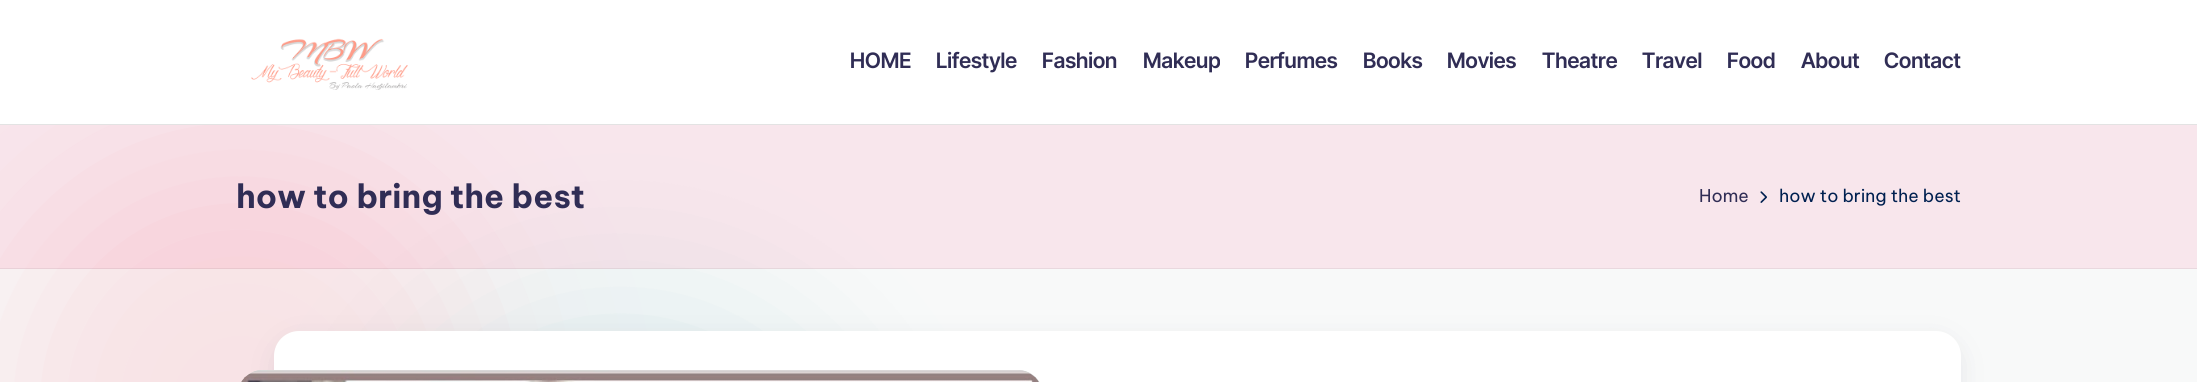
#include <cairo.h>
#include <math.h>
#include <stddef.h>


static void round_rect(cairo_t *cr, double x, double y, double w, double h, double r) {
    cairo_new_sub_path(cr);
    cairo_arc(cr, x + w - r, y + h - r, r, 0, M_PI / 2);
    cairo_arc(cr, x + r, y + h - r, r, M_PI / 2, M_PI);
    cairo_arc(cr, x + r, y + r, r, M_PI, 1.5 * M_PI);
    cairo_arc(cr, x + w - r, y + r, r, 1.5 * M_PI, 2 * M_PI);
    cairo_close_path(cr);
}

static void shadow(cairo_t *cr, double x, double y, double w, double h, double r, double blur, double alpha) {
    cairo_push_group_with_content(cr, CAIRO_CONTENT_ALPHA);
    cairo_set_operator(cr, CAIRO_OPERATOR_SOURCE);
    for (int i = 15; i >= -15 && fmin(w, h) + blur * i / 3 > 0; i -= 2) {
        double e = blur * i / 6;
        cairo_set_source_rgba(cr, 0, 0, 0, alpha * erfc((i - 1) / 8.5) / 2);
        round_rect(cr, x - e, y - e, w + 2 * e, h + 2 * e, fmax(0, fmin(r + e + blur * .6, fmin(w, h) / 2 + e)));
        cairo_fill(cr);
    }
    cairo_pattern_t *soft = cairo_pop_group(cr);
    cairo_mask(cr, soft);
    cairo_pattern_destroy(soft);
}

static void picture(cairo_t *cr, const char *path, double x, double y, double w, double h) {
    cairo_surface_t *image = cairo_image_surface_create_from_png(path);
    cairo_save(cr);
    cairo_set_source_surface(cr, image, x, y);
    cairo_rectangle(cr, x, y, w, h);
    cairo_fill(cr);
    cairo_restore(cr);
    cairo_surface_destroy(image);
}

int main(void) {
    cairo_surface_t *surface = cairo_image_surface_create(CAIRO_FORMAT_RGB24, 2197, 382);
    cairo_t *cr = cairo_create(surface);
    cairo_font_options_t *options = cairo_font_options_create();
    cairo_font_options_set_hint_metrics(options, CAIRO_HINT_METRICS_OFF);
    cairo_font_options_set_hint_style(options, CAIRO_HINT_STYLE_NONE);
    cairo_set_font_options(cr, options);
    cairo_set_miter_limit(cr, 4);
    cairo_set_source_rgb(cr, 0.969, 0.973, 0.976);
    cairo_paint(cr);
    cairo_set_source_rgb(cr, 0.969, 0.89, 0.902);
    shadow(cr, 0, 163, 480, 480, 240, 80, 1);
    cairo_set_source_rgb(cr, 0.016, 0.525, 0.545);
    shadow(cr, 380, 300, 480, 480, 240, 80, 0.1);
    cairo_set_source_rgb(cr, 0.271, 0.263, 0.376);
    shadow(cr, 274, 338, 1687, 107, 25, 12.5, 0.1);
    cairo_set_source_rgb(cr, 1, 1, 1);
    round_rect(cr, 274, 331, 1687, 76, 25);
    cairo_fill(cr);
    cairo_set_source_rgb(cr, 0.82, 0.82, 0.82);
    round_rect(cr, 238, 370, 805, 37, 25);
    cairo_fill(cr);
    picture(cr, "img1.png", 241, 370, 798, 12);
    cairo_set_source_rgb(cr, 1, 1, 1);
    cairo_rectangle(cr, 0, 0, 2197, 124);
    cairo_fill(cr);
    cairo_set_source_rgb(cr, 0.89, 0.89, 0.89);
    cairo_rectangle(cr, 0, 124, 2197, 1);
    cairo_fill(cr);
    picture(cr, "img2.png", 251, 38, 157, 52);
    cairo_select_font_face(cr, "Inter Tight SemiBold", CAIRO_FONT_SLANT_NORMAL, CAIRO_FONT_WEIGHT_NORMAL);
    cairo_set_font_size(cr, 21.25);
    cairo_set_source_rgb(cr, 0.188, 0.176, 0.333);
    cairo_move_to(cr, 850, 68);
    cairo_show_text(cr, "HOME");
    cairo_move_to(cr, 936, 68);
    cairo_show_text(cr, "Lifestyle");
    cairo_move_to(cr, 1042, 68);
    cairo_show_text(cr, "Fashion");
    cairo_move_to(cr, 1143, 68);
    cairo_show_text(cr, "Makeup");
    cairo_move_to(cr, 1245, 68);
    cairo_show_text(cr, "Perfumes");
    cairo_move_to(cr, 1363, 68);
    cairo_show_text(cr, "Books");
    cairo_move_to(cr, 1447, 68);
    cairo_show_text(cr, "Movies");
    cairo_move_to(cr, 1542, 68);
    cairo_show_text(cr, "Theatre");
    cairo_move_to(cr, 1642, 68);
    cairo_show_text(cr, "Travel");
    cairo_move_to(cr, 1727, 68);
    cairo_show_text(cr, "Food");
    cairo_move_to(cr, 1801, 68);
    cairo_show_text(cr, "About");
    cairo_move_to(cr, 1884, 68);
    cairo_show_text(cr, "Contact");
    cairo_set_source_rgba(cr, 0.957, 0.212, 0.463, 0.1);
    cairo_rectangle(cr, 0, 125, 2197, 144);
    cairo_fill(cr);
    cairo_set_source_rgba(cr, 0, 0, 0, 0.06);
    cairo_rectangle(cr, 0, 268, 2197, 1);
    cairo_fill(cr);
    cairo_select_font_face(cr, "Be Vietnam Pro", CAIRO_FONT_SLANT_NORMAL, CAIRO_FONT_WEIGHT_BOLD);
    cairo_set_font_size(cr, 32.5);
    cairo_set_source_rgb(cr, 0.188, 0.176, 0.333);
    cairo_move_to(cr, 236, 208);
    cairo_show_text(cr, "how to bring the best");
    cairo_select_font_face(cr, "Be Vietnam Pro", CAIRO_FONT_SLANT_NORMAL, CAIRO_FONT_WEIGHT_NORMAL);
    cairo_set_font_size(cr, 17.5);
    cairo_move_to(cr, 1699, 202);
    cairo_show_text(cr, "Home");
    picture(cr, "img3.png", 1760, 191, 7, 12);
    cairo_set_source_rgb(cr, 0, 0.125, 0.314);
    cairo_move_to(cr, 1779, 202);
    cairo_show_text(cr, "how to bring the best");
    cairo_surface_write_to_png(surface, "page.png");
    cairo_font_options_destroy(options);
    cairo_destroy(cr);
    cairo_surface_destroy(surface);
    return 0;
}
